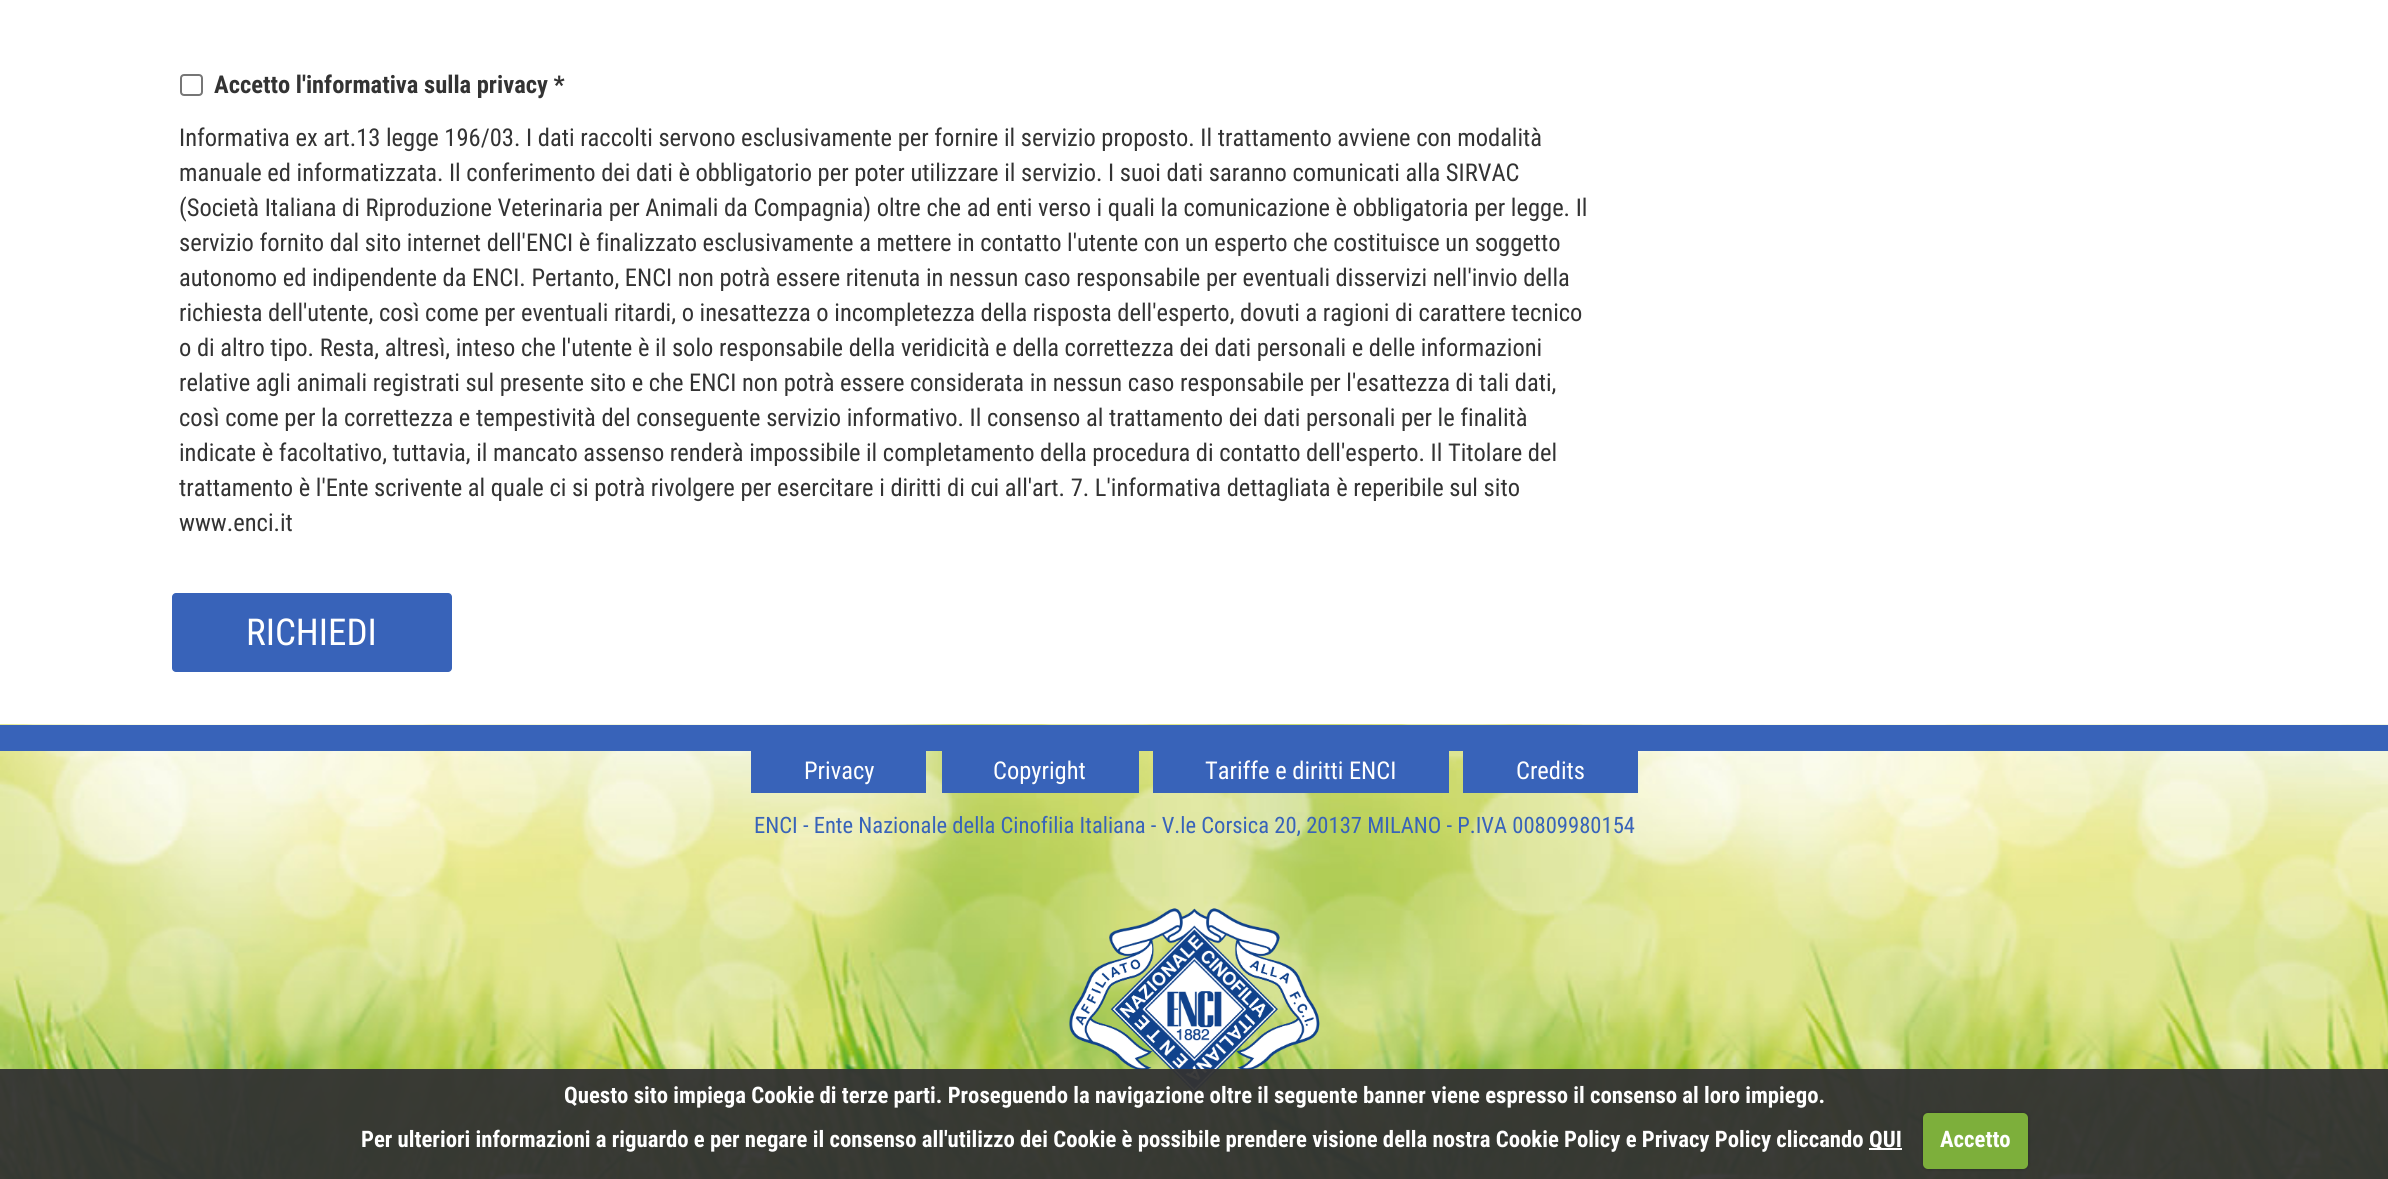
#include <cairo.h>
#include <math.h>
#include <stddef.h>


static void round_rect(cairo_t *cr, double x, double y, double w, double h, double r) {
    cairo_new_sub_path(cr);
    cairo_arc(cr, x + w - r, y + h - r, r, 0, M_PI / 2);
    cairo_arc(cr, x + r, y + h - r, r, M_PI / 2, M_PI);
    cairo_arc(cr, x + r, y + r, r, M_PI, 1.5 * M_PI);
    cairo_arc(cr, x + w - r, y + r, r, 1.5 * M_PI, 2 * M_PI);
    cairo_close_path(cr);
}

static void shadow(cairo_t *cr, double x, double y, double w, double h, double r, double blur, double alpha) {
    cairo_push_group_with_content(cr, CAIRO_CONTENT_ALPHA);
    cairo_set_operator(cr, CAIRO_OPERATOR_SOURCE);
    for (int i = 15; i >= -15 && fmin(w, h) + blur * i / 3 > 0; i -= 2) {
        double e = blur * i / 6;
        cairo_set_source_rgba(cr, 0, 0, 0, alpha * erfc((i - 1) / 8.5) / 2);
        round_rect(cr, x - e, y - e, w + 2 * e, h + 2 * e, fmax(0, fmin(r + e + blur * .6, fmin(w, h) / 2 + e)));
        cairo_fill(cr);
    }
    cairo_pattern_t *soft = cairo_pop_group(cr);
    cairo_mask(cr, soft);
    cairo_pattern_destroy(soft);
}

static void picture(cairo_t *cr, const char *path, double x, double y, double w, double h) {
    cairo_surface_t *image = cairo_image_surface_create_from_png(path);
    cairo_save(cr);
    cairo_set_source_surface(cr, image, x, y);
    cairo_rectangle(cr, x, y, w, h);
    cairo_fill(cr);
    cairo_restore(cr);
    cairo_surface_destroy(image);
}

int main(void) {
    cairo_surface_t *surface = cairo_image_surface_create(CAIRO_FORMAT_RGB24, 2388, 1179);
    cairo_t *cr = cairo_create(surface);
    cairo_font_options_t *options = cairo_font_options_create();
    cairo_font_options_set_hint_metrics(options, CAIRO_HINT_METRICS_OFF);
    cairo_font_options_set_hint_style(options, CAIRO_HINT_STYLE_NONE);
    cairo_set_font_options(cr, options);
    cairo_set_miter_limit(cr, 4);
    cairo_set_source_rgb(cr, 1, 1, 1);
    cairo_paint(cr);
    round_rect(cr, 181, 75, 21, 20, 3);
    cairo_set_source_rgb(cr, 0.463, 0.463, 0.463);
    cairo_stroke(cr);
    cairo_select_font_face(cr, "Roboto Condensed", CAIRO_FONT_SLANT_NORMAL, CAIRO_FONT_WEIGHT_BOLD);
    cairo_set_font_size(cr, 24.5);
    cairo_set_source_rgb(cr, 0.2, 0.2, 0.2);
    cairo_move_to(cr, 214, 93);
    cairo_show_text(cr, "Accetto l'informativa sulla privacy *");
    cairo_select_font_face(cr, "Roboto Condensed", CAIRO_FONT_SLANT_NORMAL, CAIRO_FONT_WEIGHT_NORMAL);
    cairo_move_to(cr, 179, 146);
    cairo_show_text(cr, "Informativa ex art.13 legge 196/03. I dati raccolti servono esclusivamente per fornire il servizio proposto. Il trattamento avviene con modalità");
    cairo_move_to(cr, 179, 181);
    cairo_show_text(cr, "manuale ed informatizzata. Il conferimento dei dati è obbligatorio per poter utilizzare il servizio. I suoi dati saranno comunicati alla SIRVAC");
    cairo_move_to(cr, 179, 216);
    cairo_show_text(cr, "(Società Italiana di Riproduzione Veterinaria per Animali da Compagnia) oltre che ad enti verso i quali la comunicazione è obbligatoria per legge. Il");
    cairo_move_to(cr, 179, 251);
    cairo_show_text(cr, "servizio fornito dal sito internet dell'ENCI è finalizzato esclusivamente a mettere in contatto l'utente con un esperto che costituisce un soggetto");
    cairo_move_to(cr, 179, 286);
    cairo_show_text(cr, "autonomo ed indipendente da ENCI. Pertanto, ENCI non potrà essere ritenuta in nessun caso responsabile per eventuali disservizi nell'invio della");
    cairo_move_to(cr, 179, 321);
    cairo_show_text(cr, "richiesta dell'utente, così come per eventuali ritardi, o inesattezza o incompletezza della risposta dell'esperto, dovuti a ragioni di carattere tecnico");
    cairo_move_to(cr, 179, 356);
    cairo_show_text(cr, "o di altro tipo. Resta, altresì, inteso che l'utente è il solo responsabile della veridicità e della correttezza dei dati personali e delle informazioni");
    cairo_move_to(cr, 179, 391);
    cairo_show_text(cr, "relative agli animali registrati sul presente sito e che ENCI non potrà essere considerata in nessun caso responsabile per l'esattezza di tali dati,");
    cairo_move_to(cr, 179, 426);
    cairo_show_text(cr, "così come per la correttezza e tempestività del conseguente servizio informativo. Il consenso al trattamento dei dati personali per le finalità");
    cairo_move_to(cr, 179, 461);
    cairo_show_text(cr, "indicate è facoltativo, tuttavia, il mancato assenso renderà impossibile il completamento della procedura di contatto dell'esperto. Il Titolare del");
    cairo_move_to(cr, 179, 496);
    cairo_show_text(cr, "trattamento è l'Ente scrivente al quale ci si potrà rivolgere per esercitare i diritti di cui all'art. 7. L'informativa dettagliata è reperibile sul sito");
    cairo_move_to(cr, 179, 531);
    cairo_show_text(cr, "www.enci.it");
    cairo_set_source_rgb(cr, 0.22, 0.388, 0.725);
    round_rect(cr, 172, 593, 280, 79, 4);
    cairo_fill(cr);
    cairo_set_font_size(cr, 37);
    cairo_set_source_rgb(cr, 1, 1, 1);
    cairo_move_to(cr, 246, 645);
    cairo_show_text(cr, "RICHIEDI");
    picture(cr, "img1.png", 0, 724, 2388, 455);
    cairo_set_source_rgb(cr, 0.22, 0.388, 0.725);
    cairo_rectangle(cr, 0, 725, 2388, 26);
    cairo_fill(cr);
    cairo_rectangle(cr, 751, 751, 175, 42);
    cairo_fill(cr);
    cairo_set_font_size(cr, 24.5);
    cairo_set_source_rgb(cr, 1, 1, 1);
    cairo_move_to(cr, 804, 779);
    cairo_show_text(cr, "Privacy");
    cairo_set_source_rgb(cr, 0.22, 0.388, 0.725);
    cairo_rectangle(cr, 942, 751, 197, 42);
    cairo_fill(cr);
    cairo_set_source_rgb(cr, 1, 1, 1);
    cairo_move_to(cr, 993, 779);
    cairo_show_text(cr, "Copyright");
    cairo_set_source_rgb(cr, 0.22, 0.388, 0.725);
    cairo_rectangle(cr, 1153, 751, 296, 42);
    cairo_fill(cr);
    cairo_set_source_rgb(cr, 1, 1, 1);
    cairo_move_to(cr, 1205, 779);
    cairo_show_text(cr, "Tariffe e diritti ENCI");
    cairo_set_source_rgb(cr, 0.22, 0.388, 0.725);
    cairo_rectangle(cr, 1463, 751, 175, 42);
    cairo_fill(cr);
    cairo_set_source_rgb(cr, 1, 1, 1);
    cairo_move_to(cr, 1516, 779);
    cairo_show_text(cr, "Credits");
    cairo_set_font_size(cr, 22.6);
    cairo_set_source_rgb(cr, 0.22, 0.388, 0.725);
    cairo_move_to(cr, 754, 833);
    cairo_show_text(cr, "ENCI - Ente Nazionale della Cinofilia Italiana - V.le Corsica 20, 20137 MILANO - P.IVA 00809980154");
    picture(cr, "img2.png", 1069, 908, 251, 185);
    cairo_set_source_rgba(cr, 0.2, 0.2, 0.2, 0.95);
    cairo_rectangle(cr, 0, 1069, 2388, 110);
    cairo_fill(cr);
    cairo_select_font_face(cr, "Roboto Condensed", CAIRO_FONT_SLANT_NORMAL, CAIRO_FONT_WEIGHT_BOLD);
    cairo_set_font_size(cr, 22.75);
    cairo_set_source_rgb(cr, 1, 1, 1);
    cairo_move_to(cr, 564, 1103);
    cairo_show_text(cr, "Questo sito impiega Cookie di terze parti. Proseguendo la navigazione oltre il seguente banner viene espresso il consenso al loro impiego.");
    cairo_move_to(cr, 361, 1147);
    cairo_show_text(cr, "Per ulteriori informazioni a riguardo e per negare il consenso all'utilizzo dei Cookie è possibile prendere visione della nostra Cookie Policy e Privacy Policy cliccando");
    cairo_rectangle(cr, 1869, 1148, 33, 2);
    cairo_fill(cr);
    cairo_move_to(cr, 1869, 1147);
    cairo_show_text(cr, "QUI");
    cairo_set_source_rgb(cr, 0, 0, 0);
    shadow(cr, 1923, 1113, 105, 56, 5, 2, 0.25);
    cairo_set_source_rgb(cr, 0.49, 0.686, 0.231);
    round_rect(cr, 1923, 1113, 105, 56, 5);
    cairo_fill(cr);
    cairo_set_source_rgb(cr, 1, 1, 1);
    cairo_move_to(cr, 1940, 1147);
    cairo_show_text(cr, "Accetto");
    cairo_surface_write_to_png(surface, "page.png");
    cairo_font_options_destroy(options);
    cairo_destroy(cr);
    cairo_surface_destroy(surface);
    return 0;
}
